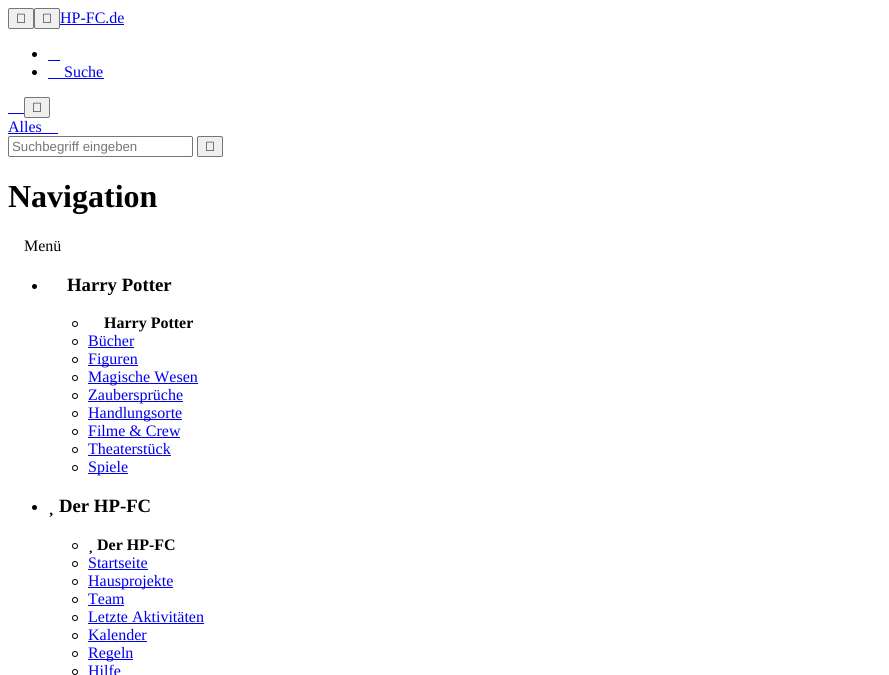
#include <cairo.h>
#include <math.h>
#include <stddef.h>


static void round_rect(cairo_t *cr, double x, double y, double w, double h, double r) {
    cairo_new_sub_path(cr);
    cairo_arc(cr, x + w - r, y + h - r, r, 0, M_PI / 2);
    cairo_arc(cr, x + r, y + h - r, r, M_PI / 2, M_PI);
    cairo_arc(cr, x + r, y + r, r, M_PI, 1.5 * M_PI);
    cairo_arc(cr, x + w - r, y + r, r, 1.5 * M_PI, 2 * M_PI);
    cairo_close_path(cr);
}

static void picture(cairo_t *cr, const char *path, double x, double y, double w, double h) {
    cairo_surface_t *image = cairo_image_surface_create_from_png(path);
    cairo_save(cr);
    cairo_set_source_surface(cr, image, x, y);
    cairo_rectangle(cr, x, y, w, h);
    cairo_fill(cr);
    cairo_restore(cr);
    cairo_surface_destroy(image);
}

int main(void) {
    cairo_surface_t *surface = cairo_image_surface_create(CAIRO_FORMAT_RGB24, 889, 675);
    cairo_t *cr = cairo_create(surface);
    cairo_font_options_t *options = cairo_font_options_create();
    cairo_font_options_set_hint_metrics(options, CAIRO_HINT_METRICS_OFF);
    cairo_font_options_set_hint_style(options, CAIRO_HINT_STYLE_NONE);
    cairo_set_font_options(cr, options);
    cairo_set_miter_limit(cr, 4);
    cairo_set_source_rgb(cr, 1, 1, 1);
    cairo_paint(cr);
    cairo_set_source_rgb(cr, 0.937, 0.937, 0.937);
    round_rect(cr, 8.5, 8.5, 25, 20, 1.5);
    cairo_fill_preserve(cr);
    cairo_set_source_rgb(cr, 0.463, 0.463, 0.463);
    cairo_set_line_width(cr, 1);
    cairo_stroke(cr);
    picture(cr, "img1.png", 17, 13, 8, 10);
    cairo_set_source_rgb(cr, 0.937, 0.937, 0.937);
    round_rect(cr, 34.5, 8.5, 25, 20, 1.5);
    cairo_fill_preserve(cr);
    cairo_set_source_rgb(cr, 0.463, 0.463, 0.463);
    cairo_stroke(cr);
    picture(cr, "img1.png", 43, 13, 8, 10);
    cairo_select_font_face(cr, "Liberation Serif", CAIRO_FONT_SLANT_NORMAL, CAIRO_FONT_WEIGHT_NORMAL);
    cairo_set_font_size(cr, 16);
    cairo_set_source_rgb(cr, 0, 0, 0.933);
    cairo_move_to(cr, 60, 23);
    cairo_show_text(cr, "HP-FC.de");
    cairo_rectangle(cr, 60, 24, 64, 1);
    cairo_fill(cr);
    cairo_set_source_rgb(cr, 0, 0, 0);
    cairo_arc(cr, 34.5, 54.5, 2.5, 0, 2 * M_PI);
    cairo_fill(cr);
    cairo_set_source_rgb(cr, 0, 0, 0.933);
    cairo_rectangle(cr, 48, 60, 12, 1);
    cairo_fill(cr);
    cairo_set_source_rgb(cr, 0, 0, 0);
    cairo_arc(cr, 34.5, 72.5, 2.5, 0, 2 * M_PI);
    cairo_fill(cr);
    cairo_set_source_rgb(cr, 0, 0, 0.933);
    cairo_move_to(cr, 64, 77);
    cairo_show_text(cr, "Suche");
    cairo_rectangle(cr, 48, 78, 56, 1);
    cairo_fill(cr);
    cairo_rectangle(cr, 8, 113, 16, 1);
    cairo_fill(cr);
    cairo_set_source_rgb(cr, 0.937, 0.937, 0.937);
    round_rect(cr, 24.5, 97.5, 25, 20, 1.5);
    cairo_fill_preserve(cr);
    cairo_set_source_rgb(cr, 0.463, 0.463, 0.463);
    cairo_stroke(cr);
    picture(cr, "img1.png", 33, 102, 8, 10);
    cairo_set_source_rgb(cr, 0, 0, 0.933);
    cairo_move_to(cr, 8, 132);
    cairo_show_text(cr, "Alles");
    cairo_rectangle(cr, 8, 133, 50, 1);
    cairo_fill(cr);
    round_rect(cr, 8.5, 136.5, 184, 20, 1.5);
    cairo_set_source_rgb(cr, 0.463, 0.463, 0.463);
    cairo_stroke(cr);
    cairo_select_font_face(cr, "Liberation Sans", CAIRO_FONT_SLANT_NORMAL, CAIRO_FONT_WEIGHT_NORMAL);
    cairo_set_font_size(cr, 13.25);
    cairo_set_source_rgb(cr, 0.459, 0.459, 0.459);
    cairo_move_to(cr, 12, 151);
    cairo_show_text(cr, "Suchbegriff eingeben");
    cairo_set_source_rgb(cr, 0.937, 0.937, 0.937);
    round_rect(cr, 197.5, 136.5, 25, 20, 1.5);
    cairo_fill_preserve(cr);
    cairo_set_source_rgb(cr, 0.463, 0.463, 0.463);
    cairo_stroke(cr);
    picture(cr, "img1.png", 206, 141, 8, 10);
    cairo_select_font_face(cr, "Liberation Serif", CAIRO_FONT_SLANT_NORMAL, CAIRO_FONT_WEIGHT_BOLD);
    cairo_set_font_size(cr, 32);
    cairo_set_source_rgb(cr, 0, 0, 0);
    cairo_move_to(cr, 8, 207);
    cairo_show_text(cr, "Navigation");
    cairo_select_font_face(cr, "Liberation Serif", CAIRO_FONT_SLANT_NORMAL, CAIRO_FONT_WEIGHT_NORMAL);
    cairo_set_font_size(cr, 16);
    cairo_move_to(cr, 24, 251);
    cairo_show_text(cr, "Menü");
    cairo_new_path(cr);
    cairo_arc(cr, 34.5, 286.5, 2.5, 0, 2 * M_PI);
    cairo_fill(cr);
    cairo_select_font_face(cr, "Liberation Serif", CAIRO_FONT_SLANT_NORMAL, CAIRO_FONT_WEIGHT_BOLD);
    cairo_set_font_size(cr, 18.75);
    cairo_move_to(cr, 67, 291);
    cairo_show_text(cr, "Harry Potter");
    cairo_new_path(cr);
    cairo_arc(cr, 75, 324, 2.5, 0, 2 * M_PI);
    cairo_stroke(cr);
    cairo_set_font_size(cr, 16);
    cairo_move_to(cr, 104, 328);
    cairo_show_text(cr, "Harry Potter");
    cairo_new_path(cr);
    cairo_arc(cr, 75, 342, 2.5, 0, 2 * M_PI);
    cairo_stroke(cr);
    cairo_select_font_face(cr, "Liberation Serif", CAIRO_FONT_SLANT_NORMAL, CAIRO_FONT_WEIGHT_NORMAL);
    cairo_set_source_rgb(cr, 0, 0, 0.933);
    cairo_move_to(cr, 88, 346);
    cairo_show_text(cr, "Bücher");
    cairo_rectangle(cr, 88, 347, 46, 1);
    cairo_fill(cr);
    cairo_arc(cr, 75, 360, 2.5, 0, 2 * M_PI);
    cairo_set_source_rgb(cr, 0, 0, 0);
    cairo_stroke(cr);
    cairo_set_source_rgb(cr, 0, 0, 0.933);
    cairo_rectangle(cr, 88, 365, 50, 1);
    cairo_fill(cr);
    cairo_move_to(cr, 88, 364);
    cairo_show_text(cr, "Figuren");
    cairo_new_path(cr);
    cairo_arc(cr, 75, 378, 2.5, 0, 2 * M_PI);
    cairo_set_source_rgb(cr, 0, 0, 0);
    cairo_stroke(cr);
    cairo_set_source_rgb(cr, 0, 0, 0.933);
    cairo_rectangle(cr, 88, 383, 110, 1);
    cairo_fill(cr);
    cairo_move_to(cr, 88, 382);
    cairo_show_text(cr, "Magische Wesen");
    cairo_new_path(cr);
    cairo_arc(cr, 75, 396, 2.5, 0, 2 * M_PI);
    cairo_set_source_rgb(cr, 0, 0, 0);
    cairo_stroke(cr);
    cairo_set_source_rgb(cr, 0, 0, 0.933);
    cairo_rectangle(cr, 88, 401, 95, 1);
    cairo_fill(cr);
    cairo_move_to(cr, 88, 400);
    cairo_show_text(cr, "Zaubersprüche");
    cairo_new_path(cr);
    cairo_arc(cr, 75, 414, 2.5, 0, 2 * M_PI);
    cairo_set_source_rgb(cr, 0, 0, 0);
    cairo_stroke(cr);
    cairo_set_source_rgb(cr, 0, 0, 0.933);
    cairo_rectangle(cr, 88, 419, 94, 1);
    cairo_fill(cr);
    cairo_move_to(cr, 88, 418);
    cairo_show_text(cr, "Handlungsorte");
    cairo_new_path(cr);
    cairo_arc(cr, 75, 432, 2.5, 0, 2 * M_PI);
    cairo_set_source_rgb(cr, 0, 0, 0);
    cairo_stroke(cr);
    cairo_set_source_rgb(cr, 0, 0, 0.933);
    cairo_move_to(cr, 88, 436);
    cairo_show_text(cr, "Filme & Crew");
    cairo_rectangle(cr, 88, 437, 92, 1);
    cairo_fill(cr);
    cairo_arc(cr, 75, 450, 2.5, 0, 2 * M_PI);
    cairo_set_source_rgb(cr, 0, 0, 0);
    cairo_stroke(cr);
    cairo_set_source_rgb(cr, 0, 0, 0.933);
    cairo_move_to(cr, 88, 454);
    cairo_show_text(cr, "Theaterstück");
    cairo_rectangle(cr, 88, 455, 83, 1);
    cairo_fill(cr);
    cairo_arc(cr, 75, 468, 2.5, 0, 2 * M_PI);
    cairo_set_source_rgb(cr, 0, 0, 0);
    cairo_stroke(cr);
    cairo_set_source_rgb(cr, 0, 0, 0.933);
    cairo_rectangle(cr, 88, 473, 40, 1);
    cairo_fill(cr);
    cairo_move_to(cr, 88, 472);
    cairo_show_text(cr, "Spiele");
    cairo_set_source_rgb(cr, 0, 0, 0);
    cairo_new_path(cr);
    cairo_arc(cr, 34.5, 507.5, 2.5, 0, 2 * M_PI);
    cairo_fill(cr);
    cairo_select_font_face(cr, "Liberation Serif", CAIRO_FONT_SLANT_NORMAL, CAIRO_FONT_WEIGHT_BOLD);
    cairo_set_font_size(cr, 18.75);
    cairo_move_to(cr, 59, 512);
    cairo_show_text(cr, "Der HP-FC");
    picture(cr, "img2.png", 49, 512, 4, 5);
    cairo_arc(cr, 75, 546, 2.5, 0, 2 * M_PI);
    cairo_stroke(cr);
    cairo_set_font_size(cr, 16);
    cairo_move_to(cr, 97, 550);
    cairo_show_text(cr, "Der HP-FC");
    picture(cr, "img3.png", 89, 550, 3, 4);
    cairo_arc(cr, 75, 564, 2.5, 0, 2 * M_PI);
    cairo_stroke(cr);
    cairo_select_font_face(cr, "Liberation Serif", CAIRO_FONT_SLANT_NORMAL, CAIRO_FONT_WEIGHT_NORMAL);
    cairo_set_source_rgb(cr, 0, 0, 0.933);
    cairo_move_to(cr, 88, 568);
    cairo_show_text(cr, "Startseite");
    cairo_rectangle(cr, 88, 569, 60, 1);
    cairo_fill(cr);
    cairo_arc(cr, 75, 582, 2.5, 0, 2 * M_PI);
    cairo_set_source_rgb(cr, 0, 0, 0);
    cairo_stroke(cr);
    cairo_set_source_rgb(cr, 0, 0, 0.933);
    cairo_rectangle(cr, 88, 587, 85, 1);
    cairo_fill(cr);
    cairo_move_to(cr, 88, 586);
    cairo_show_text(cr, "Hausprojekte");
    cairo_new_path(cr);
    cairo_arc(cr, 75, 600, 2.5, 0, 2 * M_PI);
    cairo_set_source_rgb(cr, 0, 0, 0);
    cairo_stroke(cr);
    cairo_set_source_rgb(cr, 0, 0, 0.933);
    cairo_move_to(cr, 88, 604);
    cairo_show_text(cr, "Team");
    cairo_rectangle(cr, 88, 605, 36, 1);
    cairo_fill(cr);
    cairo_arc(cr, 75, 618, 2.5, 0, 2 * M_PI);
    cairo_set_source_rgb(cr, 0, 0, 0);
    cairo_stroke(cr);
    cairo_set_source_rgb(cr, 0, 0, 0.933);
    cairo_move_to(cr, 88, 622);
    cairo_show_text(cr, "Letzte Aktivitäten");
    cairo_rectangle(cr, 88, 623, 116, 1);
    cairo_fill(cr);
    cairo_arc(cr, 75, 636, 2.5, 0, 2 * M_PI);
    cairo_set_source_rgb(cr, 0, 0, 0);
    cairo_stroke(cr);
    cairo_set_source_rgb(cr, 0, 0, 0.933);
    cairo_move_to(cr, 88, 640);
    cairo_show_text(cr, "Kalender");
    cairo_rectangle(cr, 88, 641, 59, 1);
    cairo_fill(cr);
    cairo_arc(cr, 75, 654, 2.5, 0, 2 * M_PI);
    cairo_set_source_rgb(cr, 0, 0, 0);
    cairo_stroke(cr);
    cairo_set_source_rgb(cr, 0, 0, 0.933);
    cairo_rectangle(cr, 88, 659, 45, 1);
    cairo_fill(cr);
    cairo_move_to(cr, 88, 658);
    cairo_show_text(cr, "Regeln");
    cairo_new_path(cr);
    cairo_arc(cr, 75, 672, 2.5, 0, 2 * M_PI);
    cairo_set_source_rgb(cr, 0, 0, 0);
    cairo_stroke(cr);
    cairo_set_source_rgb(cr, 0, 0, 0.933);
    cairo_move_to(cr, 88, 676);
    cairo_show_text(cr, "Hilfe");
    cairo_surface_write_to_png(surface, "page.png");
    cairo_font_options_destroy(options);
    cairo_destroy(cr);
    cairo_surface_destroy(surface);
    return 0;
}
